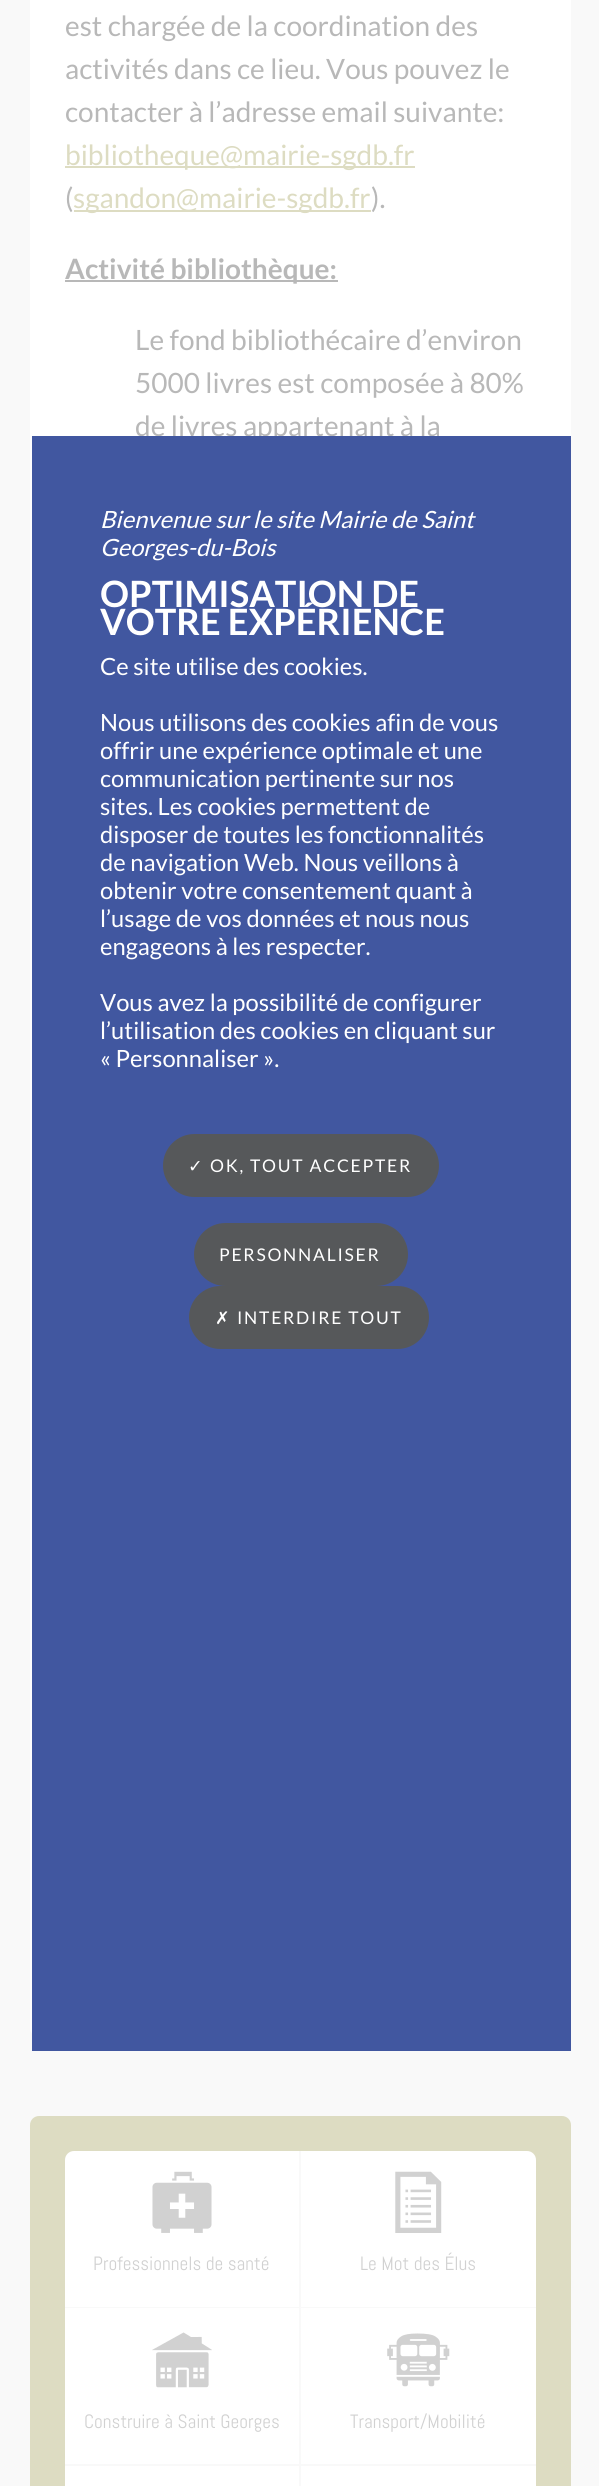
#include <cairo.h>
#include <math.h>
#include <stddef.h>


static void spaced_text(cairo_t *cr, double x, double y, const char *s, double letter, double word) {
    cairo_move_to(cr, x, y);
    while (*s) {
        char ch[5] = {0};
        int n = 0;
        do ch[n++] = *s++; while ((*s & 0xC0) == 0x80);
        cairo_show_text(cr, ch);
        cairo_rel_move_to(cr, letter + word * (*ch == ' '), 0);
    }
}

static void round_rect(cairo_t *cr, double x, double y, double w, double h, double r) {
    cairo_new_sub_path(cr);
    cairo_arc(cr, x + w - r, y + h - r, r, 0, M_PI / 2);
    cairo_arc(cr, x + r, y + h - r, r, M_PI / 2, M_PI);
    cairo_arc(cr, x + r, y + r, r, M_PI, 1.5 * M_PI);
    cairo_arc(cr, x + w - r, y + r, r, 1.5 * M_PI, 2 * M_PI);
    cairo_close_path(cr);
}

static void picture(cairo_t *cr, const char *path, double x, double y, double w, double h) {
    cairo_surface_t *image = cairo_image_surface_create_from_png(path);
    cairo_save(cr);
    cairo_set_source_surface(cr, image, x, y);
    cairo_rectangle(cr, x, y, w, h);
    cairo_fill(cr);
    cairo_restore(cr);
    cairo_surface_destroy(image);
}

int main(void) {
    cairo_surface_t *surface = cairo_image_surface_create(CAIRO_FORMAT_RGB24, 599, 2486);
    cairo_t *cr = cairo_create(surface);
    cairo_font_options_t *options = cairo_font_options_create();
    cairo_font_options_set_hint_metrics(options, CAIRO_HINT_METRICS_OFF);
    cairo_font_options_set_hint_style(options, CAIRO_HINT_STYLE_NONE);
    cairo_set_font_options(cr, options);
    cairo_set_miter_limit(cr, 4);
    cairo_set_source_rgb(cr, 0.976, 0.976, 0.976);
    cairo_paint(cr);
    cairo_set_source_rgb(cr, 1, 1, 1);
    round_rect(cr, 30, -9, 541, 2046, 9);
    cairo_fill(cr);
    cairo_select_font_face(cr, "Lato", CAIRO_FONT_SLANT_NORMAL, CAIRO_FONT_WEIGHT_NORMAL);
    cairo_set_font_size(cr, 28);
    cairo_set_source_rgb(cr, 0.722, 0.722, 0.722);
    cairo_move_to(cr, 65, 36);
    cairo_show_text(cr, "est chargée de la coordination des");
    cairo_move_to(cr, 65, 79);
    cairo_show_text(cr, "activités dans ce lieu. Vous pouvez le");
    cairo_move_to(cr, 65, 122);
    cairo_show_text(cr, "contacter à l’adresse email suivante:");
    cairo_set_source_rgb(cr, 0.867, 0.863, 0.761);
    cairo_rectangle(cr, 65, 166, 350, 2);
    cairo_fill(cr);
    cairo_move_to(cr, 65, 165);
    cairo_show_text(cr, "bibliotheque@mairie-sgdb.fr");
    cairo_set_source_rgb(cr, 0.722, 0.722, 0.722);
    cairo_move_to(cr, 65, 208);
    cairo_show_text(cr, "(");
    cairo_set_source_rgb(cr, 0.867, 0.863, 0.761);
    cairo_rectangle(cr, 74, 210, 297, 2);
    cairo_fill(cr);
    cairo_move_to(cr, 73, 208);
    cairo_show_text(cr, "sgandon@mairie-sgdb.fr");
    cairo_set_source_rgb(cr, 0.722, 0.722, 0.722);
    cairo_move_to(cr, 371, 208);
    cairo_show_text(cr, ").");
    cairo_rectangle(cr, 65, 280, 273, 2);
    cairo_fill(cr);
    cairo_select_font_face(cr, "Lato", CAIRO_FONT_SLANT_NORMAL, CAIRO_FONT_WEIGHT_BOLD);
    cairo_move_to(cr, 65, 279);
    cairo_show_text(cr, "Activité bibliothèque:");
    cairo_select_font_face(cr, "Lato", CAIRO_FONT_SLANT_NORMAL, CAIRO_FONT_WEIGHT_NORMAL);
    cairo_move_to(cr, 135, 350);
    cairo_show_text(cr, "Le fond bibliothécaire d’environ");
    cairo_move_to(cr, 135, 393);
    cairo_show_text(cr, "5000 livres est composée à 80%");
    cairo_move_to(cr, 135, 436);
    cairo_show_text(cr, "de livres appartenant à la");
    cairo_set_source_rgb(cr, 0.867, 0.863, 0.761);
    round_rect(cr, 30, 2116, 541, 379, 9);
    cairo_fill(cr);
    cairo_set_source_rgb(cr, 1, 1, 1);
    cairo_new_path(cr);
    cairo_move_to(cr, 74, 2151);
    cairo_line_to(cr, 301, 2151);
    cairo_line_to(cr, 301, 2308);
    cairo_line_to(cr, 65, 2308);
    cairo_line_to(cr, 65, 2160);
    cairo_curve_to(cr, 65, 2155, 69, 2151, 74, 2151);
    cairo_close_path(cr);
    cairo_fill(cr);
    cairo_set_source_rgb(cr, 0.976, 0.976, 0.976);
    cairo_rectangle(cr, 299, 2151, 2, 335);
    cairo_fill(cr);
    cairo_rectangle(cr, 65, 2307, 236, 1);
    cairo_fill(cr);
    picture(cr, "img1.png", 152, 2171, 60, 62);
    cairo_select_font_face(cr, "Abel", CAIRO_FONT_SLANT_NORMAL, CAIRO_FONT_WEIGHT_NORMAL);
    cairo_set_font_size(cr, 19.25);
    cairo_set_source_rgb(cr, 0.82, 0.82, 0.82);
    cairo_move_to(cr, 93, 2270);
    cairo_show_text(cr, "Professionnels de santé");
    cairo_set_source_rgb(cr, 1, 1, 1);
    cairo_new_path(cr);
    cairo_move_to(cr, 301, 2151);
    cairo_line_to(cr, 527, 2151);
    cairo_curve_to(cr, 532, 2151, 536, 2155, 536, 2160);
    cairo_line_to(cr, 536, 2308);
    cairo_line_to(cr, 301, 2308);
    cairo_close_path(cr);
    cairo_fill(cr);
    cairo_set_source_rgb(cr, 0.976, 0.976, 0.976);
    cairo_rectangle(cr, 301, 2307, 235, 1);
    cairo_fill(cr);
    picture(cr, "img2.png", 395, 2171, 47, 62);
    cairo_set_source_rgb(cr, 0.82, 0.82, 0.82);
    cairo_move_to(cr, 360, 2270);
    cairo_show_text(cr, "Le Mot des Élus");
    cairo_set_source_rgb(cr, 1, 1, 1);
    cairo_rectangle(cr, 65, 2308, 234, 156);
    cairo_fill(cr);
    cairo_set_source_rgb(cr, 0.976, 0.976, 0.976);
    cairo_rectangle(cr, 65, 2464, 471, 2);
    cairo_fill(cr);
    picture(cr, "img3.png", 152, 2332, 60, 56);
    cairo_set_source_rgb(cr, 0.82, 0.82, 0.82);
    cairo_move_to(cr, 84, 2428);
    cairo_show_text(cr, "Construire à Saint Georges");
    cairo_set_source_rgb(cr, 1, 1, 1);
    cairo_rectangle(cr, 301, 2308, 235, 156);
    cairo_fill(cr);
    picture(cr, "img4.png", 387, 2333, 63, 54);
    cairo_set_source_rgb(cr, 0.82, 0.82, 0.82);
    cairo_move_to(cr, 350, 2428);
    cairo_show_text(cr, "Transport/Mobilité");
    cairo_set_source_rgb(cr, 1, 1, 1);
    cairo_rectangle(cr, 65, 2466, 234, 20);
    cairo_fill(cr);
    cairo_rectangle(cr, 301, 2466, 235, 20);
    cairo_fill(cr);
    cairo_set_source_rgb(cr, 0.255, 0.341, 0.627);
    cairo_rectangle(cr, 32, 436, 539, 1615);
    cairo_fill(cr);
    cairo_select_font_face(cr, "Lato", CAIRO_FONT_SLANT_ITALIC, CAIRO_FONT_WEIGHT_NORMAL);
    cairo_set_font_size(cr, 23.75);
    cairo_set_source_rgb(cr, 1, 1, 1);
    cairo_move_to(cr, 100, 528);
    cairo_show_text(cr, "Bienvenue sur le site Mairie de Saint");
    cairo_move_to(cr, 100, 556);
    cairo_show_text(cr, "Georges-du-Bois");
    cairo_select_font_face(cr, "Lato", CAIRO_FONT_SLANT_NORMAL, CAIRO_FONT_WEIGHT_BOLD);
    cairo_set_font_size(cr, 36.25);
    cairo_move_to(cr, 100, 607);
    cairo_show_text(cr, "OPTIMISATION DE");
    cairo_move_to(cr, 100, 635);
    cairo_show_text(cr, "VOTRE EXPÉRIENCE");
    cairo_select_font_face(cr, "Lato", CAIRO_FONT_SLANT_NORMAL, CAIRO_FONT_WEIGHT_NORMAL);
    cairo_set_font_size(cr, 23.75);
    cairo_move_to(cr, 100, 675);
    cairo_show_text(cr, "Ce site utilise des cookies.");
    cairo_move_to(cr, 100, 731);
    cairo_show_text(cr, "Nous utilisons des cookies afin de vous");
    cairo_move_to(cr, 100, 759);
    cairo_show_text(cr, "offrir une expérience optimale et une");
    cairo_move_to(cr, 100, 787);
    cairo_show_text(cr, "communication pertinente sur nos");
    cairo_move_to(cr, 100, 815);
    cairo_show_text(cr, "sites. Les cookies permettent de");
    cairo_move_to(cr, 100, 843);
    cairo_show_text(cr, "disposer de toutes les fonctionnalités");
    cairo_move_to(cr, 100, 871);
    cairo_show_text(cr, "de navigation Web. Nous veillons à");
    cairo_move_to(cr, 100, 899);
    cairo_show_text(cr, "obtenir votre consentement quant à");
    cairo_move_to(cr, 100, 927);
    cairo_show_text(cr, "l’usage de vos données et nous nous");
    cairo_move_to(cr, 100, 955);
    cairo_show_text(cr, "engageons à les respecter.");
    cairo_move_to(cr, 100, 1011);
    cairo_show_text(cr, "Vous avez la possibilité de configurer");
    cairo_move_to(cr, 100, 1039);
    cairo_show_text(cr, "l’utilisation des cookies en cliquant sur");
    cairo_move_to(cr, 100, 1067);
    cairo_show_text(cr, "« Personnaliser ».");
    cairo_set_source_rgb(cr, 0.337, 0.345, 0.353);
    round_rect(cr, 163, 1134, 276, 63, 31.5);
    cairo_fill(cr);
    cairo_select_font_face(cr, "DejaVu Sans", CAIRO_FONT_SLANT_NORMAL, CAIRO_FONT_WEIGHT_NORMAL);
    cairo_set_font_size(cr, 17.5);
    cairo_set_source_rgb(cr, 1, 1, 1);
    spaced_text(cr, 188, 1172, "✓", 1.75, 0);
    cairo_select_font_face(cr, "Lato", CAIRO_FONT_SLANT_NORMAL, CAIRO_FONT_WEIGHT_NORMAL);
    spaced_text(cr, 210, 1172, "OK, TOUT ACCEPTER", 1.75, 0);
    cairo_set_source_rgb(cr, 0.337, 0.345, 0.353);
    round_rect(cr, 194, 1223, 214, 63, 31.5);
    cairo_fill(cr);
    cairo_set_source_rgb(cr, 1, 1, 1);
    spaced_text(cr, 219, 1261, "PERSONNALISER", 1.75, 0);
    cairo_set_source_rgb(cr, 0.337, 0.345, 0.353);
    round_rect(cr, 189, 1286, 240, 63, 31.5);
    cairo_fill(cr);
    cairo_select_font_face(cr, "DejaVu Sans", CAIRO_FONT_SLANT_NORMAL, CAIRO_FONT_WEIGHT_NORMAL);
    cairo_set_source_rgb(cr, 1, 1, 1);
    spaced_text(cr, 215, 1324, "✗", 1.75, 0);
    cairo_select_font_face(cr, "Lato", CAIRO_FONT_SLANT_NORMAL, CAIRO_FONT_WEIGHT_NORMAL);
    spaced_text(cr, 237, 1324, "INTERDIRE TOUT", 1.75, 0);
    cairo_surface_write_to_png(surface, "page.png");
    cairo_font_options_destroy(options);
    cairo_destroy(cr);
    cairo_surface_destroy(surface);
    return 0;
}
